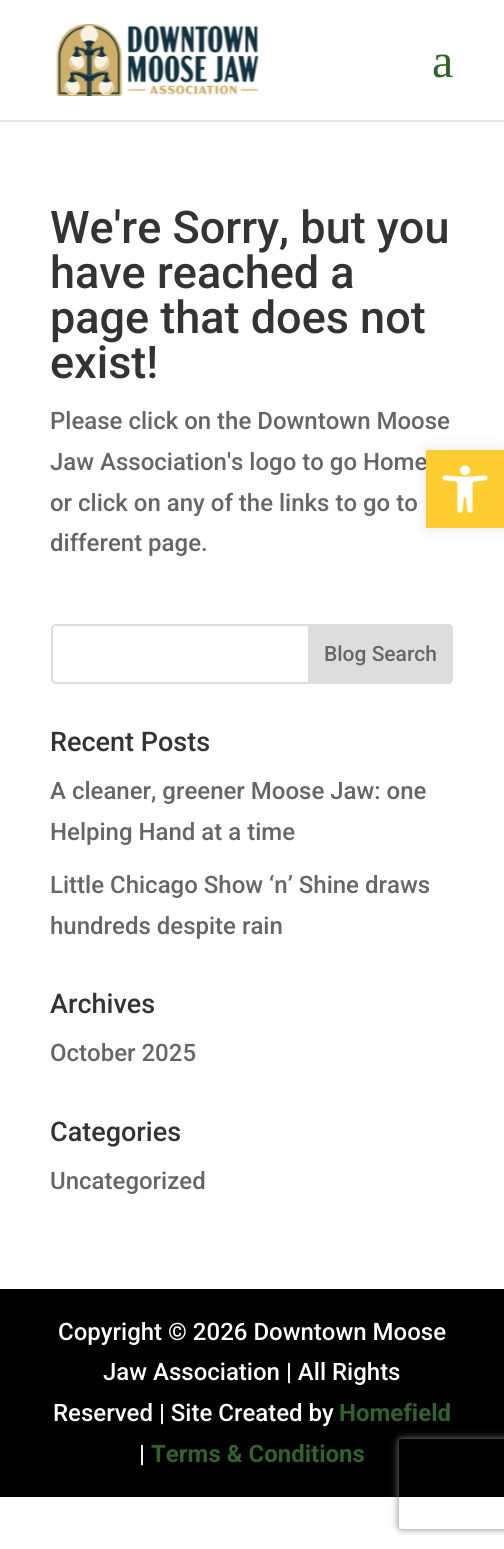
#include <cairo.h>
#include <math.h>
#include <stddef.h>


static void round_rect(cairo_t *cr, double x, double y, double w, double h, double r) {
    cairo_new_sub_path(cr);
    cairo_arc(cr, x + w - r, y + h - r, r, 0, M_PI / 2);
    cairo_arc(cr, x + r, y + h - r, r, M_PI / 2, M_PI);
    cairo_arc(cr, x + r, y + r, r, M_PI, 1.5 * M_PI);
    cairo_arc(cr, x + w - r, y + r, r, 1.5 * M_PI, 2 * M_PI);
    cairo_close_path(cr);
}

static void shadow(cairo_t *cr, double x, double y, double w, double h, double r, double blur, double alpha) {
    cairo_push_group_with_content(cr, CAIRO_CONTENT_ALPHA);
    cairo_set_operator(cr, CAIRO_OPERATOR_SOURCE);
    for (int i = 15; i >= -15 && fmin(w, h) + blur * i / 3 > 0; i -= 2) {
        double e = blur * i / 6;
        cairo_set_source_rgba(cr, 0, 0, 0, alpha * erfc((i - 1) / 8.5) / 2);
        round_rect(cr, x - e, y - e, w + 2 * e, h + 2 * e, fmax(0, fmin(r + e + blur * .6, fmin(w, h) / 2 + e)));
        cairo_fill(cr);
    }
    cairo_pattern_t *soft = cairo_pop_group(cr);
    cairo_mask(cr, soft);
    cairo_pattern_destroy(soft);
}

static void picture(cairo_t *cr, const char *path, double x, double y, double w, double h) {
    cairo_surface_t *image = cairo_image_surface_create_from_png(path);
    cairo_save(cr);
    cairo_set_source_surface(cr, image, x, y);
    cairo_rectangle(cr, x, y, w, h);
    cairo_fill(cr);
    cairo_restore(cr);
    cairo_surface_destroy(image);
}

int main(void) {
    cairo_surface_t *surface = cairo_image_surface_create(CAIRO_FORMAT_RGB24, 504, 1549);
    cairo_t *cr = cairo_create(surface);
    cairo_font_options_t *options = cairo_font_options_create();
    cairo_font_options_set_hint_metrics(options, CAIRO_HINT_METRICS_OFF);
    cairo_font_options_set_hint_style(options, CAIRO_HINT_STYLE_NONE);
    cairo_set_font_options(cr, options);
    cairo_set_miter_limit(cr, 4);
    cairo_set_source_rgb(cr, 1, 1, 1);
    cairo_paint(cr);
    cairo_set_source_rgb(cr, 0.902, 0.902, 0.902);
    cairo_rectangle(cr, 0, 120, 504, 2);
    cairo_fill(cr);
    picture(cr, "img1.png", 56, 24, 203, 72);
    cairo_select_font_face(cr, "Liberation Serif", CAIRO_FONT_SLANT_NORMAL, CAIRO_FONT_WEIGHT_NORMAL);
    cairo_set_font_size(cr, 48);
    cairo_set_source_rgb(cr, 0.196, 0.38, 0.176);
    cairo_move_to(cr, 432, 77);
    cairo_show_text(cr, "a");
    cairo_select_font_face(cr, "Roboto Medium", CAIRO_FONT_SLANT_NORMAL, CAIRO_FONT_WEIGHT_NORMAL);
    cairo_set_font_size(cr, 45);
    cairo_set_source_rgb(cr, 0.2, 0.2, 0.2);
    cairo_move_to(cr, 50, 243);
    cairo_show_text(cr, "We're Sorry, but you");
    cairo_move_to(cr, 50, 288);
    cairo_show_text(cr, "have reached a");
    cairo_move_to(cr, 50, 333);
    cairo_show_text(cr, "page that does not");
    cairo_move_to(cr, 50, 378);
    cairo_show_text(cr, "exist!");
    cairo_set_font_size(cr, 24);
    cairo_set_source_rgb(cr, 0.4, 0.4, 0.4);
    cairo_move_to(cr, 50, 429);
    cairo_show_text(cr, "Please click on the Downtown Moose");
    cairo_move_to(cr, 50, 470);
    cairo_show_text(cr, "Jaw Association's logo to go Home");
    cairo_move_to(cr, 50, 511);
    cairo_show_text(cr, "or click on any of the links to go to");
    cairo_move_to(cr, 50, 551);
    cairo_show_text(cr, "different page.");
    round_rect(cr, 52, 625, 400, 58, 4);
    cairo_set_source_rgb(cr, 0.867, 0.867, 0.867);
    cairo_stroke(cr);
    cairo_new_path(cr);
    cairo_move_to(cr, 309, 625);
    cairo_line_to(cr, 448, 625);
    cairo_curve_to(cr, 450, 625, 452, 627, 452, 629);
    cairo_line_to(cr, 452, 679);
    cairo_curve_to(cr, 452, 681, 450, 683, 448, 683);
    cairo_line_to(cr, 309, 683);
    cairo_close_path(cr);
    cairo_fill_preserve(cr);
    cairo_stroke(cr);
    cairo_set_font_size(cr, 21);
    cairo_set_source_rgb(cr, 0.4, 0.4, 0.4);
    cairo_move_to(cr, 324, 661);
    cairo_show_text(cr, "Blog Search");
    cairo_set_font_size(cr, 27);
    cairo_set_source_rgb(cr, 0.2, 0.2, 0.2);
    cairo_move_to(cr, 50, 751);
    cairo_show_text(cr, "Recent Posts");
    cairo_set_font_size(cr, 24);
    cairo_set_source_rgb(cr, 0.4, 0.4, 0.4);
    cairo_move_to(cr, 50, 799);
    cairo_show_text(cr, "A cleaner, greener Moose Jaw: one");
    cairo_move_to(cr, 50, 840);
    cairo_show_text(cr, "Helping Hand at a time");
    cairo_move_to(cr, 50, 893);
    cairo_show_text(cr, "Little Chicago Show ‘n’ Shine draws");
    cairo_move_to(cr, 50, 934);
    cairo_show_text(cr, "hundreds despite rain");
    cairo_set_font_size(cr, 27);
    cairo_set_source_rgb(cr, 0.2, 0.2, 0.2);
    cairo_move_to(cr, 50, 1013);
    cairo_show_text(cr, "Archives");
    cairo_set_font_size(cr, 24);
    cairo_set_source_rgb(cr, 0.4, 0.4, 0.4);
    cairo_move_to(cr, 50, 1061);
    cairo_show_text(cr, "October 2025");
    cairo_set_font_size(cr, 27);
    cairo_set_source_rgb(cr, 0.2, 0.2, 0.2);
    cairo_move_to(cr, 50, 1141);
    cairo_show_text(cr, "Categories");
    cairo_set_font_size(cr, 24);
    cairo_set_source_rgb(cr, 0.4, 0.4, 0.4);
    cairo_move_to(cr, 50, 1189);
    cairo_show_text(cr, "Uncategorized");
    cairo_set_source_rgb(cr, 0, 0, 0);
    cairo_rectangle(cr, 0, 1289, 504, 208);
    cairo_fill(cr);
    cairo_set_source_rgb(cr, 1, 1, 1);
    cairo_move_to(cr, 58, 1340);
    cairo_show_text(cr, "Copyright © 2026 Downtown Moose");
    cairo_move_to(cr, 103, 1380);
    cairo_show_text(cr, "Jaw Association | All Rights");
    cairo_move_to(cr, 53, 1421);
    cairo_show_text(cr, "Reserved | Site Created by");
    cairo_select_font_face(cr, "Roboto", CAIRO_FONT_SLANT_NORMAL, CAIRO_FONT_WEIGHT_BOLD);
    cairo_set_source_rgb(cr, 0.196, 0.38, 0.176);
    cairo_move_to(cr, 339, 1421);
    cairo_show_text(cr, "Homefield");
    cairo_select_font_face(cr, "Roboto Medium", CAIRO_FONT_SLANT_NORMAL, CAIRO_FONT_WEIGHT_NORMAL);
    cairo_set_source_rgb(cr, 1, 1, 1);
    cairo_move_to(cr, 139, 1462);
    cairo_show_text(cr, "|");
    cairo_select_font_face(cr, "Roboto", CAIRO_FONT_SLANT_NORMAL, CAIRO_FONT_WEIGHT_BOLD);
    cairo_set_source_rgb(cr, 0.196, 0.38, 0.176);
    cairo_move_to(cr, 151, 1462);
    cairo_show_text(cr, "Terms & Conditions");
    cairo_set_source_rgb(cr, 0, 0, 0);
    shadow(cr, 426, 450, 78, 78, 0, 7.5, 0.1);
    cairo_set_source_rgb(cr, 0.996, 0.804, 0.192);
    cairo_rectangle(cr, 426, 450, 78, 78);
    cairo_fill(cr);
    picture(cr, "img2.png", 442, 465, 46, 48);
    cairo_save(cr);
    cairo_set_fill_rule(cr, CAIRO_FILL_RULE_EVEN_ODD);
    cairo_new_path(cr);
    cairo_move_to(cr, 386, 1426);
    cairo_line_to(cr, 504, 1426);
    cairo_line_to(cr, 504, 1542);
    cairo_line_to(cr, 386, 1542);
    cairo_close_path(cr);
    cairo_move_to(cr, 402, 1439);
    cairo_line_to(cr, 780, 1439);
    cairo_curve_to(cr, 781.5, 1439, 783, 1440.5, 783, 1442);
    cairo_line_to(cr, 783, 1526);
    cairo_curve_to(cr, 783, 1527.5, 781.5, 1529, 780, 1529);
    cairo_line_to(cr, 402, 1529);
    cairo_curve_to(cr, 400.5, 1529, 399, 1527.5, 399, 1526);
    cairo_line_to(cr, 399, 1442);
    cairo_curve_to(cr, 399, 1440.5, 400.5, 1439, 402, 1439);
    cairo_close_path(cr);
    cairo_clip(cr);
    cairo_set_source_rgb(cr, 0.502, 0.502, 0.502);
    shadow(cr, 399, 1439, 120, 90, 3, 4, 1);
    cairo_restore(cr);
    cairo_surface_write_to_png(surface, "page.png");
    cairo_font_options_destroy(options);
    cairo_destroy(cr);
    cairo_surface_destroy(surface);
    return 0;
}
